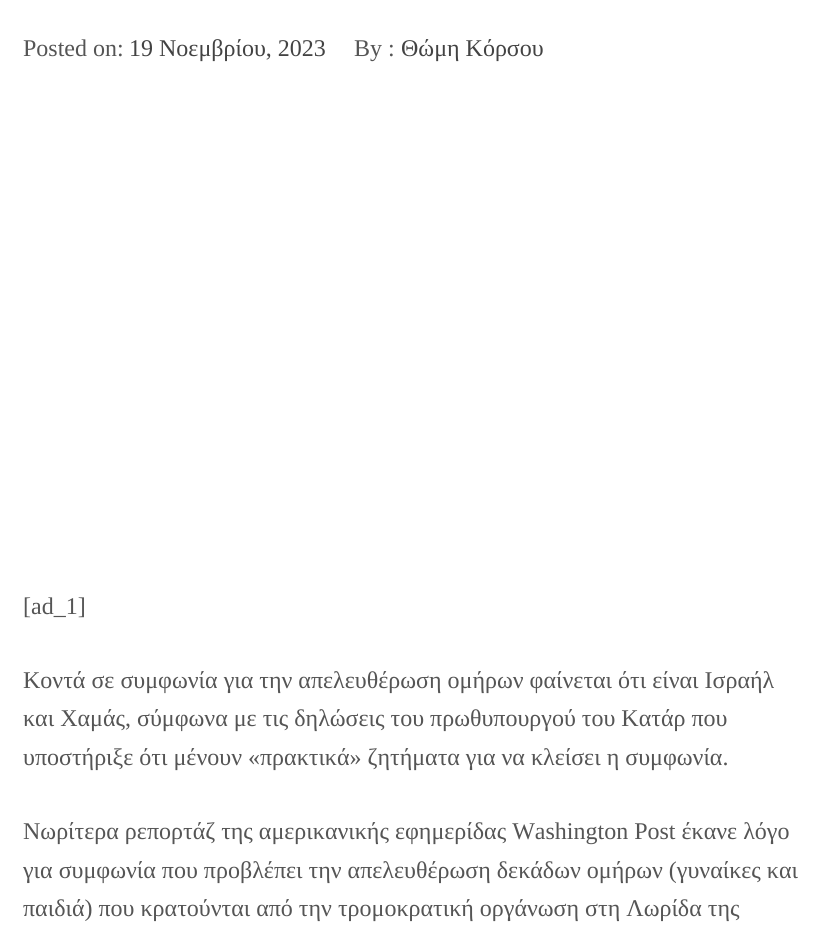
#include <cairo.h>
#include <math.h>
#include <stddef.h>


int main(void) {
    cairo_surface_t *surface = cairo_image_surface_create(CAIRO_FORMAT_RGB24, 822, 928);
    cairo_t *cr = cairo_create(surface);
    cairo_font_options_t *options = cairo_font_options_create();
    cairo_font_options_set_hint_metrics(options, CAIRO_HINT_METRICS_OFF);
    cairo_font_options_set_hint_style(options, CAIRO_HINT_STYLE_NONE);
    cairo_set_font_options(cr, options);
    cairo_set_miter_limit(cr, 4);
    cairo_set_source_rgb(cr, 1, 1, 1);
    cairo_paint(cr);
    cairo_select_font_face(cr, "Liberation Serif", CAIRO_FONT_SLANT_NORMAL, CAIRO_FONT_WEIGHT_NORMAL);
    cairo_set_font_size(cr, 24);
    cairo_set_source_rgb(cr, 0.333, 0.333, 0.333);
    cairo_move_to(cr, 23, 56);
    cairo_show_text(cr, "Posted on:");
    cairo_set_source_rgb(cr, 0.263, 0.263, 0.263);
    cairo_move_to(cr, 129, 56);
    cairo_show_text(cr, "19 Νοεμβρίου, 2023");
    cairo_set_source_rgb(cr, 0.333, 0.333, 0.333);
    cairo_move_to(cr, 354, 56);
    cairo_show_text(cr, "By :");
    cairo_set_source_rgb(cr, 0.263, 0.263, 0.263);
    cairo_move_to(cr, 401, 56);
    cairo_show_text(cr, "Θώμη Κόρσου");
    cairo_set_source_rgb(cr, 0.333, 0.333, 0.333);
    cairo_move_to(cr, 23, 614);
    cairo_show_text(cr, "[ad_1]");
    cairo_move_to(cr, 23, 688);
    cairo_show_text(cr, "Κοντά σε συμφωνία για την απελευθέρωση ομήρων φαίνεται ότι είναι Ισραήλ");
    cairo_move_to(cr, 23, 726);
    cairo_show_text(cr, "και Χαμάς, σύμφωνα με τις δηλώσεις του πρωθυπουργού του Κατάρ που");
    cairo_move_to(cr, 23, 765);
    cairo_show_text(cr, "υποστήριξε ότι μένουν «πρακτικά» ζητήματα για να κλείσει η συμφωνία.");
    cairo_move_to(cr, 23, 839);
    cairo_show_text(cr, "Νωρίτερα ρεπορτάζ της αμερικανικής εφημερίδας Washington Post έκανε λόγο");
    cairo_move_to(cr, 23, 878);
    cairo_show_text(cr, "για συμφωνία που προβλέπει την απελευθέρωση δεκάδων ομήρων (γυναίκες και");
    cairo_move_to(cr, 23, 916);
    cairo_show_text(cr, "παιδιά) που κρατούνται από την τρομοκρατική οργάνωση στη Λωρίδα της");
    cairo_surface_write_to_png(surface, "page.png");
    cairo_font_options_destroy(options);
    cairo_destroy(cr);
    cairo_surface_destroy(surface);
    return 0;
}
